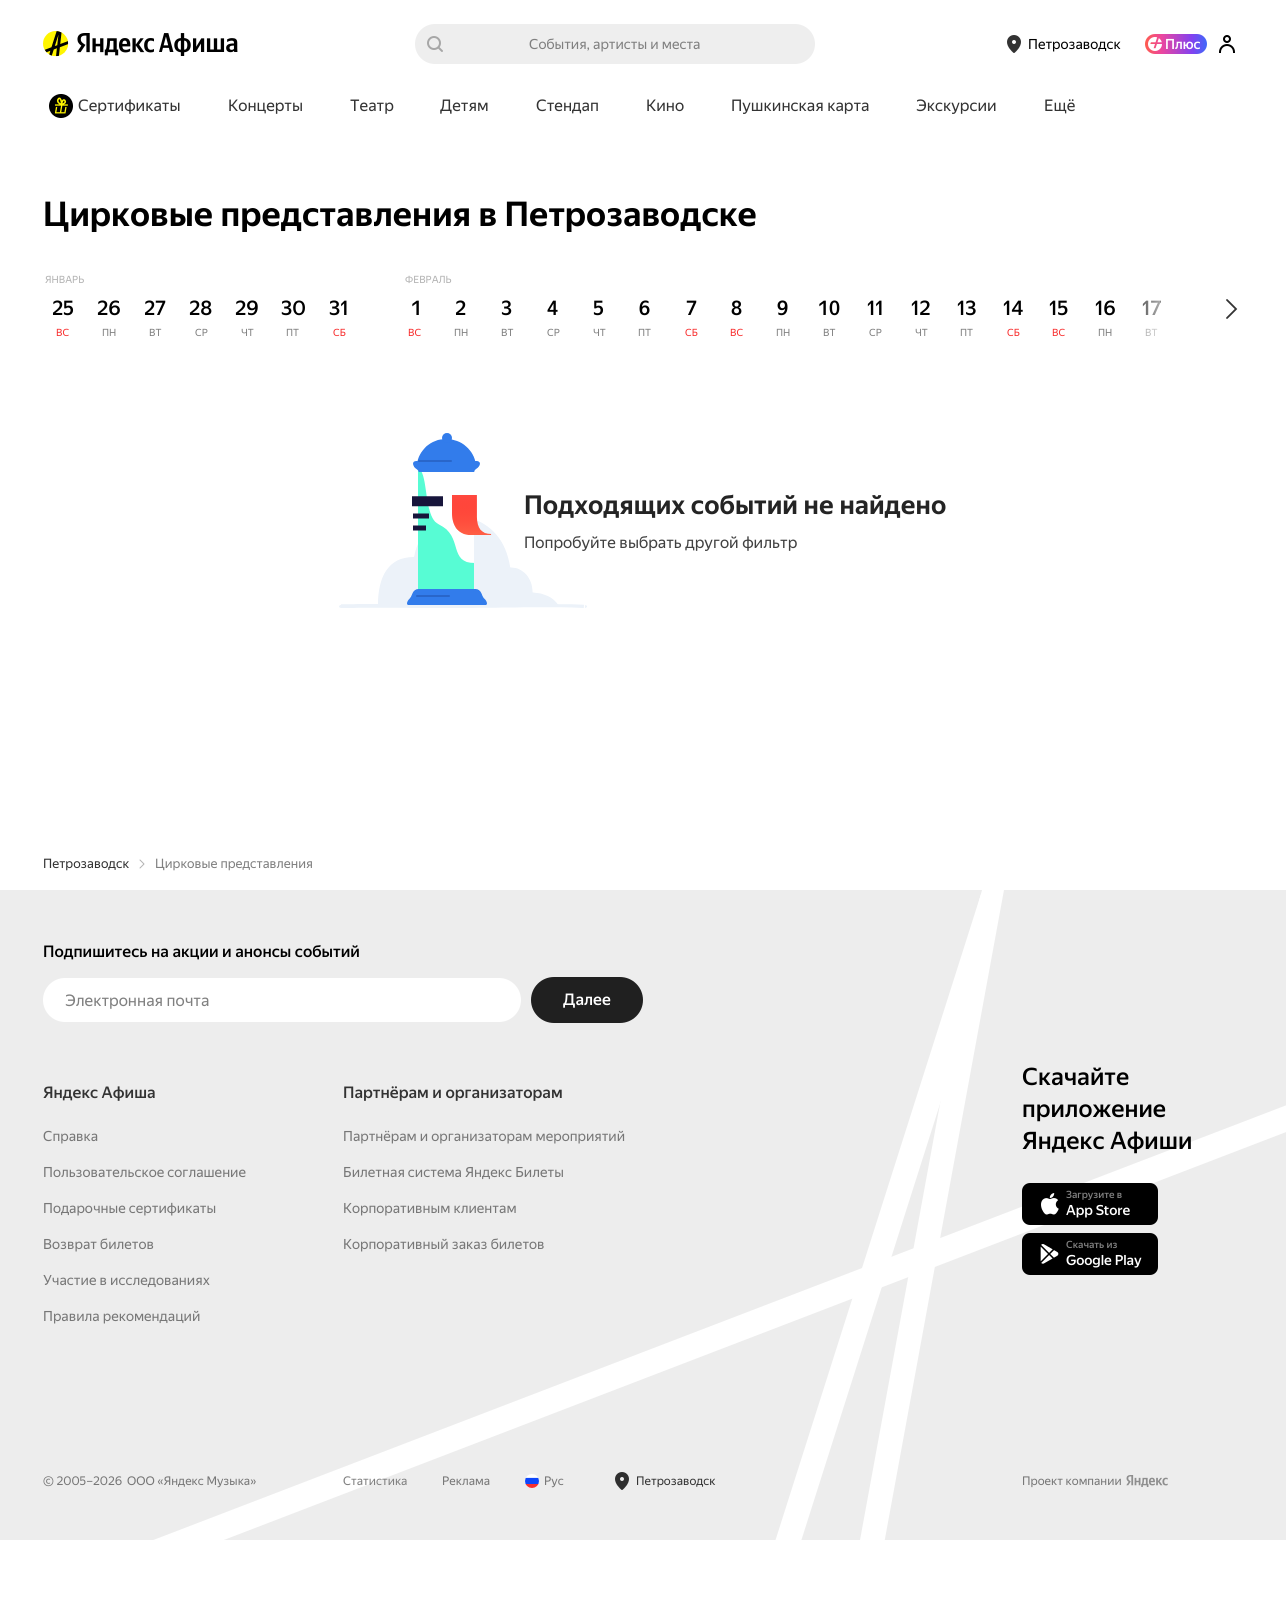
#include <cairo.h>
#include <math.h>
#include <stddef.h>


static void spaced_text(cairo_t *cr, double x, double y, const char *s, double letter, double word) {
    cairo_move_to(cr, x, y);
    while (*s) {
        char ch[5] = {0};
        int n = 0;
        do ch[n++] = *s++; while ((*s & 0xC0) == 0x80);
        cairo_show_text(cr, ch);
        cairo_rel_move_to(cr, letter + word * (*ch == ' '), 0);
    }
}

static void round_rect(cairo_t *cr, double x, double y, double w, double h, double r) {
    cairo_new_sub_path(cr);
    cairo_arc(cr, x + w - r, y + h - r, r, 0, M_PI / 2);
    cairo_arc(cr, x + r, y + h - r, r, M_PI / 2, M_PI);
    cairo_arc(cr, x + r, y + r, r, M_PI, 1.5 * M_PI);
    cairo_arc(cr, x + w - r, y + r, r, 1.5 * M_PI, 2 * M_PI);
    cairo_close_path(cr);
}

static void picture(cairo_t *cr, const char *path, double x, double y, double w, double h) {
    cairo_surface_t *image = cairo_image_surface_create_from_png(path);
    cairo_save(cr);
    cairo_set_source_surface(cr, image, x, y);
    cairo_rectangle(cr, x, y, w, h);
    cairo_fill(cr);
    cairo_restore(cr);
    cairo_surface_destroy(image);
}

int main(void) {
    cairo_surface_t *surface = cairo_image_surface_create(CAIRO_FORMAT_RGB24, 1286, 1602);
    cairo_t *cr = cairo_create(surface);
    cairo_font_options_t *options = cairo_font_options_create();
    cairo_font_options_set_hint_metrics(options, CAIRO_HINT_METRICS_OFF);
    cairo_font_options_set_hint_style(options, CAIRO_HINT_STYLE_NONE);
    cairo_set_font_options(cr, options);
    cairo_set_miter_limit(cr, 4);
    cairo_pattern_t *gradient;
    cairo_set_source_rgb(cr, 1, 1, 1);
    cairo_paint(cr);
    picture(cr, "img1.png", 43, 31, 26, 26);
    picture(cr, "img2.png", 77, 33, 161, 23);
    picture(cr, "img3.png", 427, 36, 16, 16);
    cairo_set_source_rgba(cr, 0, 0, 0, 0.07);
    round_rect(cr, 415, 24, 400, 40, 20);
    cairo_fill(cr);
    cairo_select_font_face(cr, "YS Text", CAIRO_FONT_SLANT_NORMAL, CAIRO_FONT_WEIGHT_NORMAL);
    cairo_set_font_size(cr, 14);
    cairo_set_source_rgb(cr, 0.502, 0.502, 0.502);
    cairo_move_to(cr, 529, 49);
    cairo_show_text(cr, "События, артисты и места");
    picture(cr, "img4.png", 1007, 35, 14, 18);
    cairo_set_source_rgb(cr, 0, 0, 0);
    cairo_move_to(cr, 1028, 49);
    cairo_show_text(cr, "Петрозаводск");
    gradient = cairo_pattern_create_linear(1145, 44, 1207, 44);
    cairo_pattern_add_color_stop_rgba(gradient, 0, 1, 0.361, 0.302, 1);
    cairo_pattern_add_color_stop_rgba(gradient, 0.27, 0.922, 0.275, 0.624, 1);
    cairo_pattern_add_color_stop_rgba(gradient, 0.75, 0.514, 0.255, 0.937, 1);
    cairo_pattern_add_color_stop_rgba(gradient, 1, 0.247, 0.408, 0.976, 1);
    cairo_set_source(cr, gradient);
    cairo_pattern_destroy(gradient);
    round_rect(cr, 1145, 34, 62, 20, 10);
    cairo_fill(cr);
    picture(cr, "img5.png", 1148, 37, 14, 14);
    picture(cr, "img6.png", 1166, 38, 34, 12);
    picture(cr, "img7.png", 1219, 35, 16, 18);
    picture(cr, "img8.png", 49, 94, 24, 24);
    cairo_set_font_size(cr, 16);
    cairo_set_source_rgb(cr, 0.2, 0.2, 0.2);
    cairo_move_to(cr, 78, 111);
    cairo_show_text(cr, "Сертификаты");
    cairo_move_to(cr, 228, 111);
    cairo_show_text(cr, "Концерты");
    cairo_move_to(cr, 350, 111);
    cairo_show_text(cr, "Театр");
    cairo_move_to(cr, 440, 111);
    cairo_show_text(cr, "Детям");
    cairo_move_to(cr, 536, 111);
    cairo_show_text(cr, "Стендап");
    cairo_move_to(cr, 646, 111);
    cairo_show_text(cr, "Кино");
    cairo_move_to(cr, 731, 111);
    cairo_show_text(cr, "Пушкинская карта");
    cairo_move_to(cr, 916, 111);
    cairo_show_text(cr, "Экскурсии");
    cairo_move_to(cr, 1044, 111);
    cairo_show_text(cr, "Ещё");
    cairo_select_font_face(cr, "YS Text", CAIRO_FONT_SLANT_NORMAL, CAIRO_FONT_WEIGHT_BOLD);
    cairo_set_font_size(cr, 34);
    cairo_set_source_rgb(cr, 0, 0, 0);
    cairo_move_to(cr, 43, 226);
    cairo_show_text(cr, "Цирковые представления в Петрозаводске");
    cairo_select_font_face(cr, "YS Text", CAIRO_FONT_SLANT_NORMAL, CAIRO_FONT_WEIGHT_NORMAL);
    cairo_set_font_size(cr, 10);
    cairo_set_source_rgb(cr, 0.702, 0.702, 0.702);
    cairo_move_to(cr, 45, 283);
    cairo_show_text(cr, "ЯНВАРЬ");
    cairo_select_font_face(cr, "YS Text Medium", CAIRO_FONT_SLANT_NORMAL, CAIRO_FONT_WEIGHT_NORMAL);
    cairo_set_font_size(cr, 20);
    cairo_set_source_rgb(cr, 0, 0, 0);
    cairo_move_to(cr, 52, 315);
    cairo_show_text(cr, "25");
    cairo_select_font_face(cr, "YS Text", CAIRO_FONT_SLANT_NORMAL, CAIRO_FONT_WEIGHT_NORMAL);
    cairo_set_font_size(cr, 10);
    cairo_set_source_rgb(cr, 0.969, 0.184, 0.184);
    cairo_move_to(cr, 56, 336);
    cairo_show_text(cr, "ВС");
    cairo_select_font_face(cr, "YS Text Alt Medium", CAIRO_FONT_SLANT_NORMAL, CAIRO_FONT_WEIGHT_NORMAL);
    cairo_set_font_size(cr, 20);
    cairo_set_source_rgb(cr, 0, 0, 0);
    cairo_move_to(cr, 97, 315);
    cairo_show_text(cr, "26");
    cairo_select_font_face(cr, "YS Text", CAIRO_FONT_SLANT_NORMAL, CAIRO_FONT_WEIGHT_NORMAL);
    cairo_set_font_size(cr, 10);
    cairo_set_source_rgb(cr, 0.502, 0.502, 0.502);
    cairo_move_to(cr, 102, 336);
    cairo_show_text(cr, "ПН");
    cairo_select_font_face(cr, "YS Text Medium", CAIRO_FONT_SLANT_NORMAL, CAIRO_FONT_WEIGHT_NORMAL);
    cairo_set_font_size(cr, 20);
    cairo_set_source_rgb(cr, 0, 0, 0);
    cairo_move_to(cr, 144, 315);
    cairo_show_text(cr, "27");
    cairo_select_font_face(cr, "YS Text", CAIRO_FONT_SLANT_NORMAL, CAIRO_FONT_WEIGHT_NORMAL);
    cairo_set_font_size(cr, 10);
    cairo_set_source_rgb(cr, 0.502, 0.502, 0.502);
    cairo_move_to(cr, 149, 336);
    cairo_show_text(cr, "ВТ");
    cairo_select_font_face(cr, "YS Text Alt Medium", CAIRO_FONT_SLANT_NORMAL, CAIRO_FONT_WEIGHT_NORMAL);
    cairo_set_font_size(cr, 20);
    cairo_set_source_rgb(cr, 0, 0, 0);
    cairo_move_to(cr, 189, 315);
    cairo_show_text(cr, "28");
    cairo_select_font_face(cr, "YS Text", CAIRO_FONT_SLANT_NORMAL, CAIRO_FONT_WEIGHT_NORMAL);
    cairo_set_font_size(cr, 10);
    cairo_set_source_rgb(cr, 0.502, 0.502, 0.502);
    cairo_move_to(cr, 195, 336);
    cairo_show_text(cr, "СР");
    cairo_select_font_face(cr, "YS Text Alt Medium", CAIRO_FONT_SLANT_NORMAL, CAIRO_FONT_WEIGHT_NORMAL);
    cairo_set_font_size(cr, 20);
    cairo_set_source_rgb(cr, 0, 0, 0);
    cairo_move_to(cr, 235, 315);
    cairo_show_text(cr, "29");
    cairo_select_font_face(cr, "YS Text", CAIRO_FONT_SLANT_NORMAL, CAIRO_FONT_WEIGHT_NORMAL);
    cairo_set_font_size(cr, 10);
    cairo_set_source_rgb(cr, 0.502, 0.502, 0.502);
    cairo_move_to(cr, 241, 336);
    cairo_show_text(cr, "ЧТ");
    cairo_select_font_face(cr, "YS Text Alt Medium", CAIRO_FONT_SLANT_NORMAL, CAIRO_FONT_WEIGHT_NORMAL);
    cairo_set_font_size(cr, 20);
    cairo_set_source_rgb(cr, 0, 0, 0);
    cairo_move_to(cr, 281, 315);
    cairo_show_text(cr, "30");
    cairo_select_font_face(cr, "YS Text", CAIRO_FONT_SLANT_NORMAL, CAIRO_FONT_WEIGHT_NORMAL);
    cairo_set_font_size(cr, 10);
    cairo_set_source_rgb(cr, 0.502, 0.502, 0.502);
    cairo_move_to(cr, 286, 336);
    cairo_show_text(cr, "ПТ");
    cairo_select_font_face(cr, "YS Text Alt Medium", CAIRO_FONT_SLANT_NORMAL, CAIRO_FONT_WEIGHT_NORMAL);
    cairo_set_font_size(cr, 20);
    cairo_set_source_rgb(cr, 0, 0, 0);
    cairo_move_to(cr, 329, 315);
    cairo_show_text(cr, "31");
    cairo_select_font_face(cr, "YS Text", CAIRO_FONT_SLANT_NORMAL, CAIRO_FONT_WEIGHT_NORMAL);
    cairo_set_font_size(cr, 10);
    cairo_set_source_rgb(cr, 0.969, 0.184, 0.184);
    cairo_move_to(cr, 333, 336);
    cairo_show_text(cr, "СБ");
    cairo_set_source_rgb(cr, 0.702, 0.702, 0.702);
    cairo_move_to(cr, 405, 283);
    cairo_show_text(cr, "ФЕВРАЛЬ");
    cairo_select_font_face(cr, "YS Text Medium", CAIRO_FONT_SLANT_NORMAL, CAIRO_FONT_WEIGHT_NORMAL);
    cairo_set_font_size(cr, 20);
    cairo_set_source_rgb(cr, 0, 0, 0);
    cairo_move_to(cr, 411, 315);
    cairo_show_text(cr, "1");
    cairo_select_font_face(cr, "YS Text", CAIRO_FONT_SLANT_NORMAL, CAIRO_FONT_WEIGHT_NORMAL);
    cairo_set_font_size(cr, 10);
    cairo_set_source_rgb(cr, 0.969, 0.184, 0.184);
    cairo_move_to(cr, 408, 336);
    cairo_show_text(cr, "ВС");
    cairo_select_font_face(cr, "YS Text Medium", CAIRO_FONT_SLANT_NORMAL, CAIRO_FONT_WEIGHT_NORMAL);
    cairo_set_font_size(cr, 20);
    cairo_set_source_rgb(cr, 0, 0, 0);
    cairo_move_to(cr, 455, 315);
    cairo_show_text(cr, "2");
    cairo_select_font_face(cr, "YS Text", CAIRO_FONT_SLANT_NORMAL, CAIRO_FONT_WEIGHT_NORMAL);
    cairo_set_font_size(cr, 10);
    cairo_set_source_rgb(cr, 0.502, 0.502, 0.502);
    cairo_move_to(cr, 454, 336);
    cairo_show_text(cr, "ПН");
    cairo_select_font_face(cr, "YS Text Medium", CAIRO_FONT_SLANT_NORMAL, CAIRO_FONT_WEIGHT_NORMAL);
    cairo_set_font_size(cr, 20);
    cairo_set_source_rgb(cr, 0, 0, 0);
    cairo_move_to(cr, 501, 315);
    cairo_show_text(cr, "3");
    cairo_select_font_face(cr, "YS Text", CAIRO_FONT_SLANT_NORMAL, CAIRO_FONT_WEIGHT_NORMAL);
    cairo_set_font_size(cr, 10);
    cairo_set_source_rgb(cr, 0.502, 0.502, 0.502);
    cairo_move_to(cr, 501, 336);
    cairo_show_text(cr, "ВТ");
    cairo_select_font_face(cr, "YS Text Medium", CAIRO_FONT_SLANT_NORMAL, CAIRO_FONT_WEIGHT_NORMAL);
    cairo_set_font_size(cr, 20);
    cairo_set_source_rgb(cr, 0, 0, 0);
    cairo_move_to(cr, 547, 315);
    cairo_show_text(cr, "4");
    cairo_select_font_face(cr, "YS Text", CAIRO_FONT_SLANT_NORMAL, CAIRO_FONT_WEIGHT_NORMAL);
    cairo_set_font_size(cr, 10);
    cairo_set_source_rgb(cr, 0.502, 0.502, 0.502);
    cairo_move_to(cr, 547, 336);
    cairo_show_text(cr, "СР");
    cairo_select_font_face(cr, "YS Text Medium", CAIRO_FONT_SLANT_NORMAL, CAIRO_FONT_WEIGHT_NORMAL);
    cairo_set_font_size(cr, 20);
    cairo_set_source_rgb(cr, 0, 0, 0);
    cairo_move_to(cr, 593, 315);
    cairo_show_text(cr, "5");
    cairo_select_font_face(cr, "YS Text", CAIRO_FONT_SLANT_NORMAL, CAIRO_FONT_WEIGHT_NORMAL);
    cairo_set_font_size(cr, 10);
    cairo_set_source_rgb(cr, 0.502, 0.502, 0.502);
    cairo_move_to(cr, 593, 336);
    cairo_show_text(cr, "ЧТ");
    cairo_select_font_face(cr, "YS Text Medium", CAIRO_FONT_SLANT_NORMAL, CAIRO_FONT_WEIGHT_NORMAL);
    cairo_set_font_size(cr, 20);
    cairo_set_source_rgb(cr, 0, 0, 0);
    cairo_move_to(cr, 639, 315);
    cairo_show_text(cr, "6");
    cairo_select_font_face(cr, "YS Text", CAIRO_FONT_SLANT_NORMAL, CAIRO_FONT_WEIGHT_NORMAL);
    cairo_set_font_size(cr, 10);
    cairo_set_source_rgb(cr, 0.502, 0.502, 0.502);
    cairo_move_to(cr, 638, 336);
    cairo_show_text(cr, "ПТ");
    cairo_select_font_face(cr, "YS Text Medium", CAIRO_FONT_SLANT_NORMAL, CAIRO_FONT_WEIGHT_NORMAL);
    cairo_set_font_size(cr, 20);
    cairo_set_source_rgb(cr, 0, 0, 0);
    cairo_move_to(cr, 686, 315);
    cairo_show_text(cr, "7");
    cairo_select_font_face(cr, "YS Text", CAIRO_FONT_SLANT_NORMAL, CAIRO_FONT_WEIGHT_NORMAL);
    cairo_set_font_size(cr, 10);
    cairo_set_source_rgb(cr, 0.969, 0.184, 0.184);
    cairo_move_to(cr, 685, 336);
    cairo_show_text(cr, "СБ");
    cairo_select_font_face(cr, "YS Text Medium", CAIRO_FONT_SLANT_NORMAL, CAIRO_FONT_WEIGHT_NORMAL);
    cairo_set_font_size(cr, 20);
    cairo_set_source_rgb(cr, 0, 0, 0);
    cairo_move_to(cr, 731, 315);
    cairo_show_text(cr, "8");
    cairo_select_font_face(cr, "YS Text", CAIRO_FONT_SLANT_NORMAL, CAIRO_FONT_WEIGHT_NORMAL);
    cairo_set_font_size(cr, 10);
    cairo_set_source_rgb(cr, 0.969, 0.184, 0.184);
    cairo_move_to(cr, 730, 336);
    cairo_show_text(cr, "ВС");
    cairo_select_font_face(cr, "YS Text Medium", CAIRO_FONT_SLANT_NORMAL, CAIRO_FONT_WEIGHT_NORMAL);
    cairo_set_font_size(cr, 20);
    cairo_set_source_rgb(cr, 0, 0, 0);
    cairo_move_to(cr, 777, 315);
    cairo_show_text(cr, "9");
    cairo_select_font_face(cr, "YS Text", CAIRO_FONT_SLANT_NORMAL, CAIRO_FONT_WEIGHT_NORMAL);
    cairo_set_font_size(cr, 10);
    cairo_set_source_rgb(cr, 0.502, 0.502, 0.502);
    cairo_move_to(cr, 776, 336);
    cairo_show_text(cr, "ПН");
    cairo_select_font_face(cr, "YS Text Medium", CAIRO_FONT_SLANT_NORMAL, CAIRO_FONT_WEIGHT_NORMAL);
    cairo_set_font_size(cr, 20);
    cairo_set_source_rgb(cr, 0, 0, 0);
    cairo_move_to(cr, 818, 315);
    cairo_show_text(cr, "10");
    cairo_select_font_face(cr, "YS Text", CAIRO_FONT_SLANT_NORMAL, CAIRO_FONT_WEIGHT_NORMAL);
    cairo_set_font_size(cr, 10);
    cairo_set_source_rgb(cr, 0.502, 0.502, 0.502);
    cairo_move_to(cr, 823, 336);
    cairo_show_text(cr, "ВТ");
    cairo_select_font_face(cr, "YS Text Alt Medium", CAIRO_FONT_SLANT_NORMAL, CAIRO_FONT_WEIGHT_NORMAL);
    cairo_set_font_size(cr, 20);
    cairo_set_source_rgb(cr, 0, 0, 0);
    cairo_move_to(cr, 867, 315);
    cairo_show_text(cr, "11");
    cairo_select_font_face(cr, "YS Text", CAIRO_FONT_SLANT_NORMAL, CAIRO_FONT_WEIGHT_NORMAL);
    cairo_set_font_size(cr, 10);
    cairo_set_source_rgb(cr, 0.502, 0.502, 0.502);
    cairo_move_to(cr, 869, 336);
    cairo_show_text(cr, "СР");
    cairo_select_font_face(cr, "YS Text Alt Medium", CAIRO_FONT_SLANT_NORMAL, CAIRO_FONT_WEIGHT_NORMAL);
    cairo_set_font_size(cr, 20);
    cairo_set_source_rgb(cr, 0, 0, 0);
    cairo_move_to(cr, 911, 315);
    cairo_show_text(cr, "12");
    cairo_select_font_face(cr, "YS Text", CAIRO_FONT_SLANT_NORMAL, CAIRO_FONT_WEIGHT_NORMAL);
    cairo_set_font_size(cr, 10);
    cairo_set_source_rgb(cr, 0.502, 0.502, 0.502);
    cairo_move_to(cr, 915, 336);
    cairo_show_text(cr, "ЧТ");
    cairo_select_font_face(cr, "YS Text Alt Medium", CAIRO_FONT_SLANT_NORMAL, CAIRO_FONT_WEIGHT_NORMAL);
    cairo_set_font_size(cr, 20);
    cairo_set_source_rgb(cr, 0, 0, 0);
    cairo_move_to(cr, 957, 315);
    cairo_show_text(cr, "13");
    cairo_select_font_face(cr, "YS Text", CAIRO_FONT_SLANT_NORMAL, CAIRO_FONT_WEIGHT_NORMAL);
    cairo_set_font_size(cr, 10);
    cairo_set_source_rgb(cr, 0.502, 0.502, 0.502);
    cairo_move_to(cr, 960, 336);
    cairo_show_text(cr, "ПТ");
    cairo_select_font_face(cr, "YS Text Alt Medium", CAIRO_FONT_SLANT_NORMAL, CAIRO_FONT_WEIGHT_NORMAL);
    cairo_set_font_size(cr, 20);
    cairo_set_source_rgb(cr, 0, 0, 0);
    cairo_move_to(cr, 1003, 315);
    cairo_show_text(cr, "14");
    cairo_select_font_face(cr, "YS Text", CAIRO_FONT_SLANT_NORMAL, CAIRO_FONT_WEIGHT_NORMAL);
    cairo_set_font_size(cr, 10);
    cairo_set_source_rgb(cr, 0.969, 0.184, 0.184);
    cairo_move_to(cr, 1007, 336);
    cairo_show_text(cr, "СБ");
    cairo_select_font_face(cr, "YS Text Alt Medium", CAIRO_FONT_SLANT_NORMAL, CAIRO_FONT_WEIGHT_NORMAL);
    cairo_set_font_size(cr, 20);
    cairo_set_source_rgb(cr, 0, 0, 0);
    cairo_move_to(cr, 1049, 315);
    cairo_show_text(cr, "15");
    cairo_select_font_face(cr, "YS Text", CAIRO_FONT_SLANT_NORMAL, CAIRO_FONT_WEIGHT_NORMAL);
    cairo_set_font_size(cr, 10);
    cairo_set_source_rgb(cr, 0.969, 0.184, 0.184);
    cairo_move_to(cr, 1052, 336);
    cairo_show_text(cr, "ВС");
    cairo_select_font_face(cr, "YS Text Alt Medium", CAIRO_FONT_SLANT_NORMAL, CAIRO_FONT_WEIGHT_NORMAL);
    cairo_set_font_size(cr, 20);
    cairo_set_source_rgb(cr, 0, 0, 0);
    cairo_move_to(cr, 1095, 315);
    cairo_show_text(cr, "16");
    cairo_select_font_face(cr, "YS Text", CAIRO_FONT_SLANT_NORMAL, CAIRO_FONT_WEIGHT_NORMAL);
    cairo_set_font_size(cr, 10);
    cairo_set_source_rgb(cr, 0.502, 0.502, 0.502);
    cairo_move_to(cr, 1098, 336);
    cairo_show_text(cr, "ПН");
    cairo_select_font_face(cr, "YS Text Alt Medium", CAIRO_FONT_SLANT_NORMAL, CAIRO_FONT_WEIGHT_NORMAL);
    cairo_set_font_size(cr, 20);
    cairo_set_source_rgb(cr, 0, 0, 0);
    cairo_move_to(cr, 1142, 315);
    cairo_show_text(cr, "17");
    cairo_select_font_face(cr, "YS Text", CAIRO_FONT_SLANT_NORMAL, CAIRO_FONT_WEIGHT_NORMAL);
    cairo_set_font_size(cr, 10);
    cairo_set_source_rgb(cr, 0.502, 0.502, 0.502);
    cairo_move_to(cr, 1145, 336);
    cairo_show_text(cr, "ВТ");
    gradient = cairo_pattern_create_linear(1219, 321, 1119, 321);
    cairo_pattern_add_color_stop_rgba(gradient, 0, 1, 1, 1, 1);
    cairo_pattern_add_color_stop_rgba(gradient, 0.39, 1, 1, 1, 1);
    cairo_pattern_add_color_stop_rgba(gradient, 1, 1, 1, 1, 0);
    cairo_set_source(cr, gradient);
    cairo_pattern_destroy(gradient);
    cairo_rectangle(cr, 1142, 300, 18, 36);
    cairo_fill(cr);
    cairo_new_path(cr);
    cairo_move_to(cr, 1227, 318);
    cairo_line_to(cr, 1236, 309);
    cairo_line_to(cr, 1227, 300);
    cairo_set_source_rgb(cr, 0.2, 0.2, 0.2);
    cairo_set_line_width(cr, 1.8);
    cairo_set_line_cap(cr, CAIRO_LINE_CAP_ROUND);
    cairo_stroke(cr);
    picture(cr, "img9.png", 339, 433, 248, 175);
    cairo_select_font_face(cr, "YS Text", CAIRO_FONT_SLANT_NORMAL, CAIRO_FONT_WEIGHT_BOLD);
    cairo_set_font_size(cr, 26);
    cairo_set_source_rgb(cr, 0.141, 0.141, 0.141);
    cairo_move_to(cr, 524, 514);
    cairo_show_text(cr, "Подходящих событий не найдено");
    cairo_select_font_face(cr, "YS Text", CAIRO_FONT_SLANT_NORMAL, CAIRO_FONT_WEIGHT_NORMAL);
    cairo_set_font_size(cr, 16);
    cairo_set_source_rgb(cr, 0.255, 0.255, 0.255);
    cairo_move_to(cr, 524, 548);
    cairo_show_text(cr, "Попробуйте выбрать другой фильтр");
    cairo_set_font_size(cr, 13);
    cairo_set_source_rgb(cr, 0.2, 0.2, 0.2);
    cairo_move_to(cr, 43, 868);
    cairo_show_text(cr, "Петрозаводск");
    cairo_new_path(cr);
    cairo_move_to(cr, 140, 860);
    cairo_line_to(cr, 144, 864);
    cairo_line_to(cr, 140, 868);
    cairo_set_source_rgb(cr, 0.702, 0.702, 0.702);
    cairo_set_line_width(cr, 1);
    cairo_set_line_join(cr, CAIRO_LINE_JOIN_ROUND);
    cairo_stroke(cr);
    cairo_set_source_rgb(cr, 0.502, 0.502, 0.502);
    cairo_move_to(cr, 155, 868);
    cairo_show_text(cr, "Цирковые представления");
    cairo_set_source_rgb(cr, 0.929, 0.929, 0.929);
    cairo_rectangle(cr, 0, 890, 1286, 650);
    cairo_fill(cr);
    cairo_select_font_face(cr, "YS Text Medium", CAIRO_FONT_SLANT_NORMAL, CAIRO_FONT_WEIGHT_NORMAL);
    cairo_set_font_size(cr, 16);
    cairo_set_source_rgb(cr, 0, 0, 0);
    cairo_move_to(cr, 43, 957);
    cairo_show_text(cr, "Подпишитесь на акции и анонсы событий");
    cairo_set_source_rgb(cr, 1, 1, 1);
    round_rect(cr, 44, 979, 476, 42, 21);
    cairo_fill_preserve(cr);
    cairo_set_line_width(cr, 2);
    cairo_set_line_cap(cr, CAIRO_LINE_CAP_BUTT);
    cairo_set_line_join(cr, CAIRO_LINE_JOIN_MITER);
    cairo_stroke(cr);
    cairo_select_font_face(cr, "YS Text", CAIRO_FONT_SLANT_NORMAL, CAIRO_FONT_WEIGHT_NORMAL);
    cairo_set_source_rgb(cr, 0.502, 0.502, 0.502);
    cairo_move_to(cr, 65, 1006);
    cairo_show_text(cr, "Электронная почта");
    cairo_set_source_rgb(cr, 0.125, 0.125, 0.125);
    round_rect(cr, 531, 977, 112, 46, 23);
    cairo_fill(cr);
    cairo_select_font_face(cr, "YS Text Medium", CAIRO_FONT_SLANT_NORMAL, CAIRO_FONT_WEIGHT_NORMAL);
    cairo_set_source_rgb(cr, 1, 1, 1);
    cairo_move_to(cr, 563, 1005);
    cairo_show_text(cr, "Далее");
    cairo_set_source_rgb(cr, 0.2, 0.2, 0.2);
    cairo_move_to(cr, 43, 1098);
    cairo_show_text(cr, "Яндекс Афиша");
    cairo_select_font_face(cr, "YS Text", CAIRO_FONT_SLANT_NORMAL, CAIRO_FONT_WEIGHT_NORMAL);
    cairo_set_font_size(cr, 14);
    cairo_set_source_rgb(cr, 0.467, 0.467, 0.467);
    cairo_move_to(cr, 43, 1141);
    cairo_show_text(cr, "Справка");
    cairo_save(cr);
    cairo_rectangle(cr, 109, 890, 1177, 650);
    cairo_clip(cr);
    cairo_set_source_rgb(cr, 1, 1, 1);
    cairo_set_fill_rule(cr, CAIRO_FILL_RULE_EVEN_ODD);
    cairo_new_path(cr);
    cairo_move_to(cr, 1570, 1023);
    cairo_line_to(cr, 117, 1581);
    cairo_line_to(cr, 109, 1557);
    cairo_line_to(cr, 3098, 410);
    cairo_line_to(cr, 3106, 434);
    cairo_close_path(cr);
    cairo_fill(cr);
    cairo_restore(cr);
    cairo_move_to(cr, 43, 1177);
    cairo_show_text(cr, "Пользовательское соглашение");
    cairo_move_to(cr, 43, 1213);
    cairo_show_text(cr, "Подарочные сертификаты");
    cairo_move_to(cr, 43, 1249);
    cairo_show_text(cr, "Возврат билетов");
    cairo_move_to(cr, 43, 1285);
    cairo_show_text(cr, "Участие в исследованиях");
    cairo_move_to(cr, 43, 1321);
    cairo_show_text(cr, "Правила рекомендаций");
    cairo_select_font_face(cr, "YS Text Medium", CAIRO_FONT_SLANT_NORMAL, CAIRO_FONT_WEIGHT_NORMAL);
    cairo_set_font_size(cr, 16);
    cairo_set_source_rgb(cr, 0.2, 0.2, 0.2);
    cairo_move_to(cr, 343, 1098);
    cairo_show_text(cr, "Партнёрам и организаторам");
    cairo_select_font_face(cr, "YS Text", CAIRO_FONT_SLANT_NORMAL, CAIRO_FONT_WEIGHT_NORMAL);
    cairo_set_font_size(cr, 14);
    cairo_set_source_rgb(cr, 0.467, 0.467, 0.467);
    cairo_move_to(cr, 343, 1141);
    cairo_show_text(cr, "Партнёрам и организаторам мероприятий");
    cairo_move_to(cr, 343, 1177);
    cairo_show_text(cr, "Билетная система Яндекс Билеты");
    cairo_move_to(cr, 343, 1213);
    cairo_show_text(cr, "Корпоративным клиентам");
    cairo_move_to(cr, 343, 1249);
    cairo_show_text(cr, "Корпоративный заказ билетов");
    cairo_select_font_face(cr, "YS Text Alt", CAIRO_FONT_SLANT_NORMAL, CAIRO_FONT_WEIGHT_NORMAL);
    cairo_set_font_size(cr, 12);
    cairo_move_to(cr, 43, 1485);
    cairo_show_text(cr, "© 2005–2026");
    cairo_select_font_face(cr, "YS Text", CAIRO_FONT_SLANT_NORMAL, CAIRO_FONT_WEIGHT_NORMAL);
    cairo_move_to(cr, 127, 1485);
    cairo_show_text(cr, "ООО «Яндекс Музыка»");
    cairo_set_source_rgb(cr, 0.502, 0.502, 0.502);
    cairo_move_to(cr, 343, 1485);
    cairo_show_text(cr, "Статистика");
    cairo_set_source_rgb(cr, 0.467, 0.467, 0.467);
    cairo_move_to(cr, 442, 1485);
    cairo_show_text(cr, "Реклама");
    picture(cr, "img10.png", 525, 1474, 14, 14);
    cairo_move_to(cr, 544, 1485);
    cairo_show_text(cr, "Рус");
    picture(cr, "img11.png", 615, 1472, 14, 18);
    cairo_set_source_rgb(cr, 0.2, 0.2, 0.2);
    cairo_move_to(cr, 636, 1485);
    cairo_show_text(cr, "Петрозаводск");
    cairo_save(cr);
    cairo_rectangle(cr, 757, 890, 247, 650);
    cairo_clip(cr);
    cairo_set_source_rgb(cr, 1, 1, 1);
    cairo_set_fill_rule(cr, CAIRO_FILL_RULE_EVEN_ODD);
    cairo_new_path(cr);
    cairo_move_to(cr, 838, 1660);
    cairo_line_to(cr, 973, 924);
    cairo_line_to(cr, 982, 890);
    cairo_line_to(cr, 1004, 890);
    cairo_line_to(cr, 862, 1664);
    cairo_close_path(cr);
    cairo_fill(cr);
    cairo_new_path(cr);
    cairo_move_to(cr, 731, 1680);
    cairo_line_to(cr, 981, 894);
    cairo_line_to(cr, 1002, 894);
    cairo_line_to(cr, 995, 931);
    cairo_line_to(cr, 755, 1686);
    cairo_close_path(cr);
    cairo_fill(cr);
    cairo_restore(cr);
    cairo_select_font_face(cr, "YS Text Medium", CAIRO_FONT_SLANT_NORMAL, CAIRO_FONT_WEIGHT_NORMAL);
    cairo_set_font_size(cr, 24);
    cairo_set_source_rgb(cr, 0, 0, 0);
    cairo_move_to(cr, 1022, 1085);
    cairo_show_text(cr, "Скачайте");
    cairo_move_to(cr, 1022, 1117);
    cairo_show_text(cr, "приложение");
    cairo_move_to(cr, 1022, 1149);
    cairo_show_text(cr, "Яндекс Афиши");
    round_rect(cr, 1022, 1183, 136, 42, 8);
    cairo_fill(cr);
    picture(cr, "img12.png", 1041, 1193, 18, 22);
    cairo_set_font_size(cr, 10);
    cairo_set_source_rgb(cr, 0.502, 0.502, 0.502);
    cairo_move_to(cr, 1066, 1198);
    cairo_show_text(cr, "Загрузите в");
    cairo_set_font_size(cr, 14);
    cairo_set_source_rgb(cr, 1, 1, 1);
    spaced_text(cr, 1066, 1215, "App Store", -0.1, 0);
    cairo_set_source_rgb(cr, 0, 0, 0);
    round_rect(cr, 1022, 1233, 136, 42, 8);
    cairo_fill(cr);
    picture(cr, "img13.png", 1040, 1244, 19, 20);
    cairo_set_font_size(cr, 10);
    cairo_set_source_rgb(cr, 0.502, 0.502, 0.502);
    cairo_move_to(cr, 1066, 1248);
    cairo_show_text(cr, "Скачать из");
    cairo_set_font_size(cr, 14);
    cairo_set_source_rgb(cr, 1, 1, 1);
    spaced_text(cr, 1066, 1265, "Google Play", -0.1, 0);
    cairo_select_font_face(cr, "YS Text", CAIRO_FONT_SLANT_NORMAL, CAIRO_FONT_WEIGHT_NORMAL);
    cairo_set_font_size(cr, 12);
    cairo_set_source_rgb(cr, 0.467, 0.467, 0.467);
    cairo_move_to(cr, 1022, 1485);
    cairo_show_text(cr, "Проект компании");
    picture(cr, "img14.png", 1126, 1475, 42, 12);
    cairo_surface_write_to_png(surface, "page.png");
    cairo_font_options_destroy(options);
    cairo_destroy(cr);
    cairo_surface_destroy(surface);
    return 0;
}
